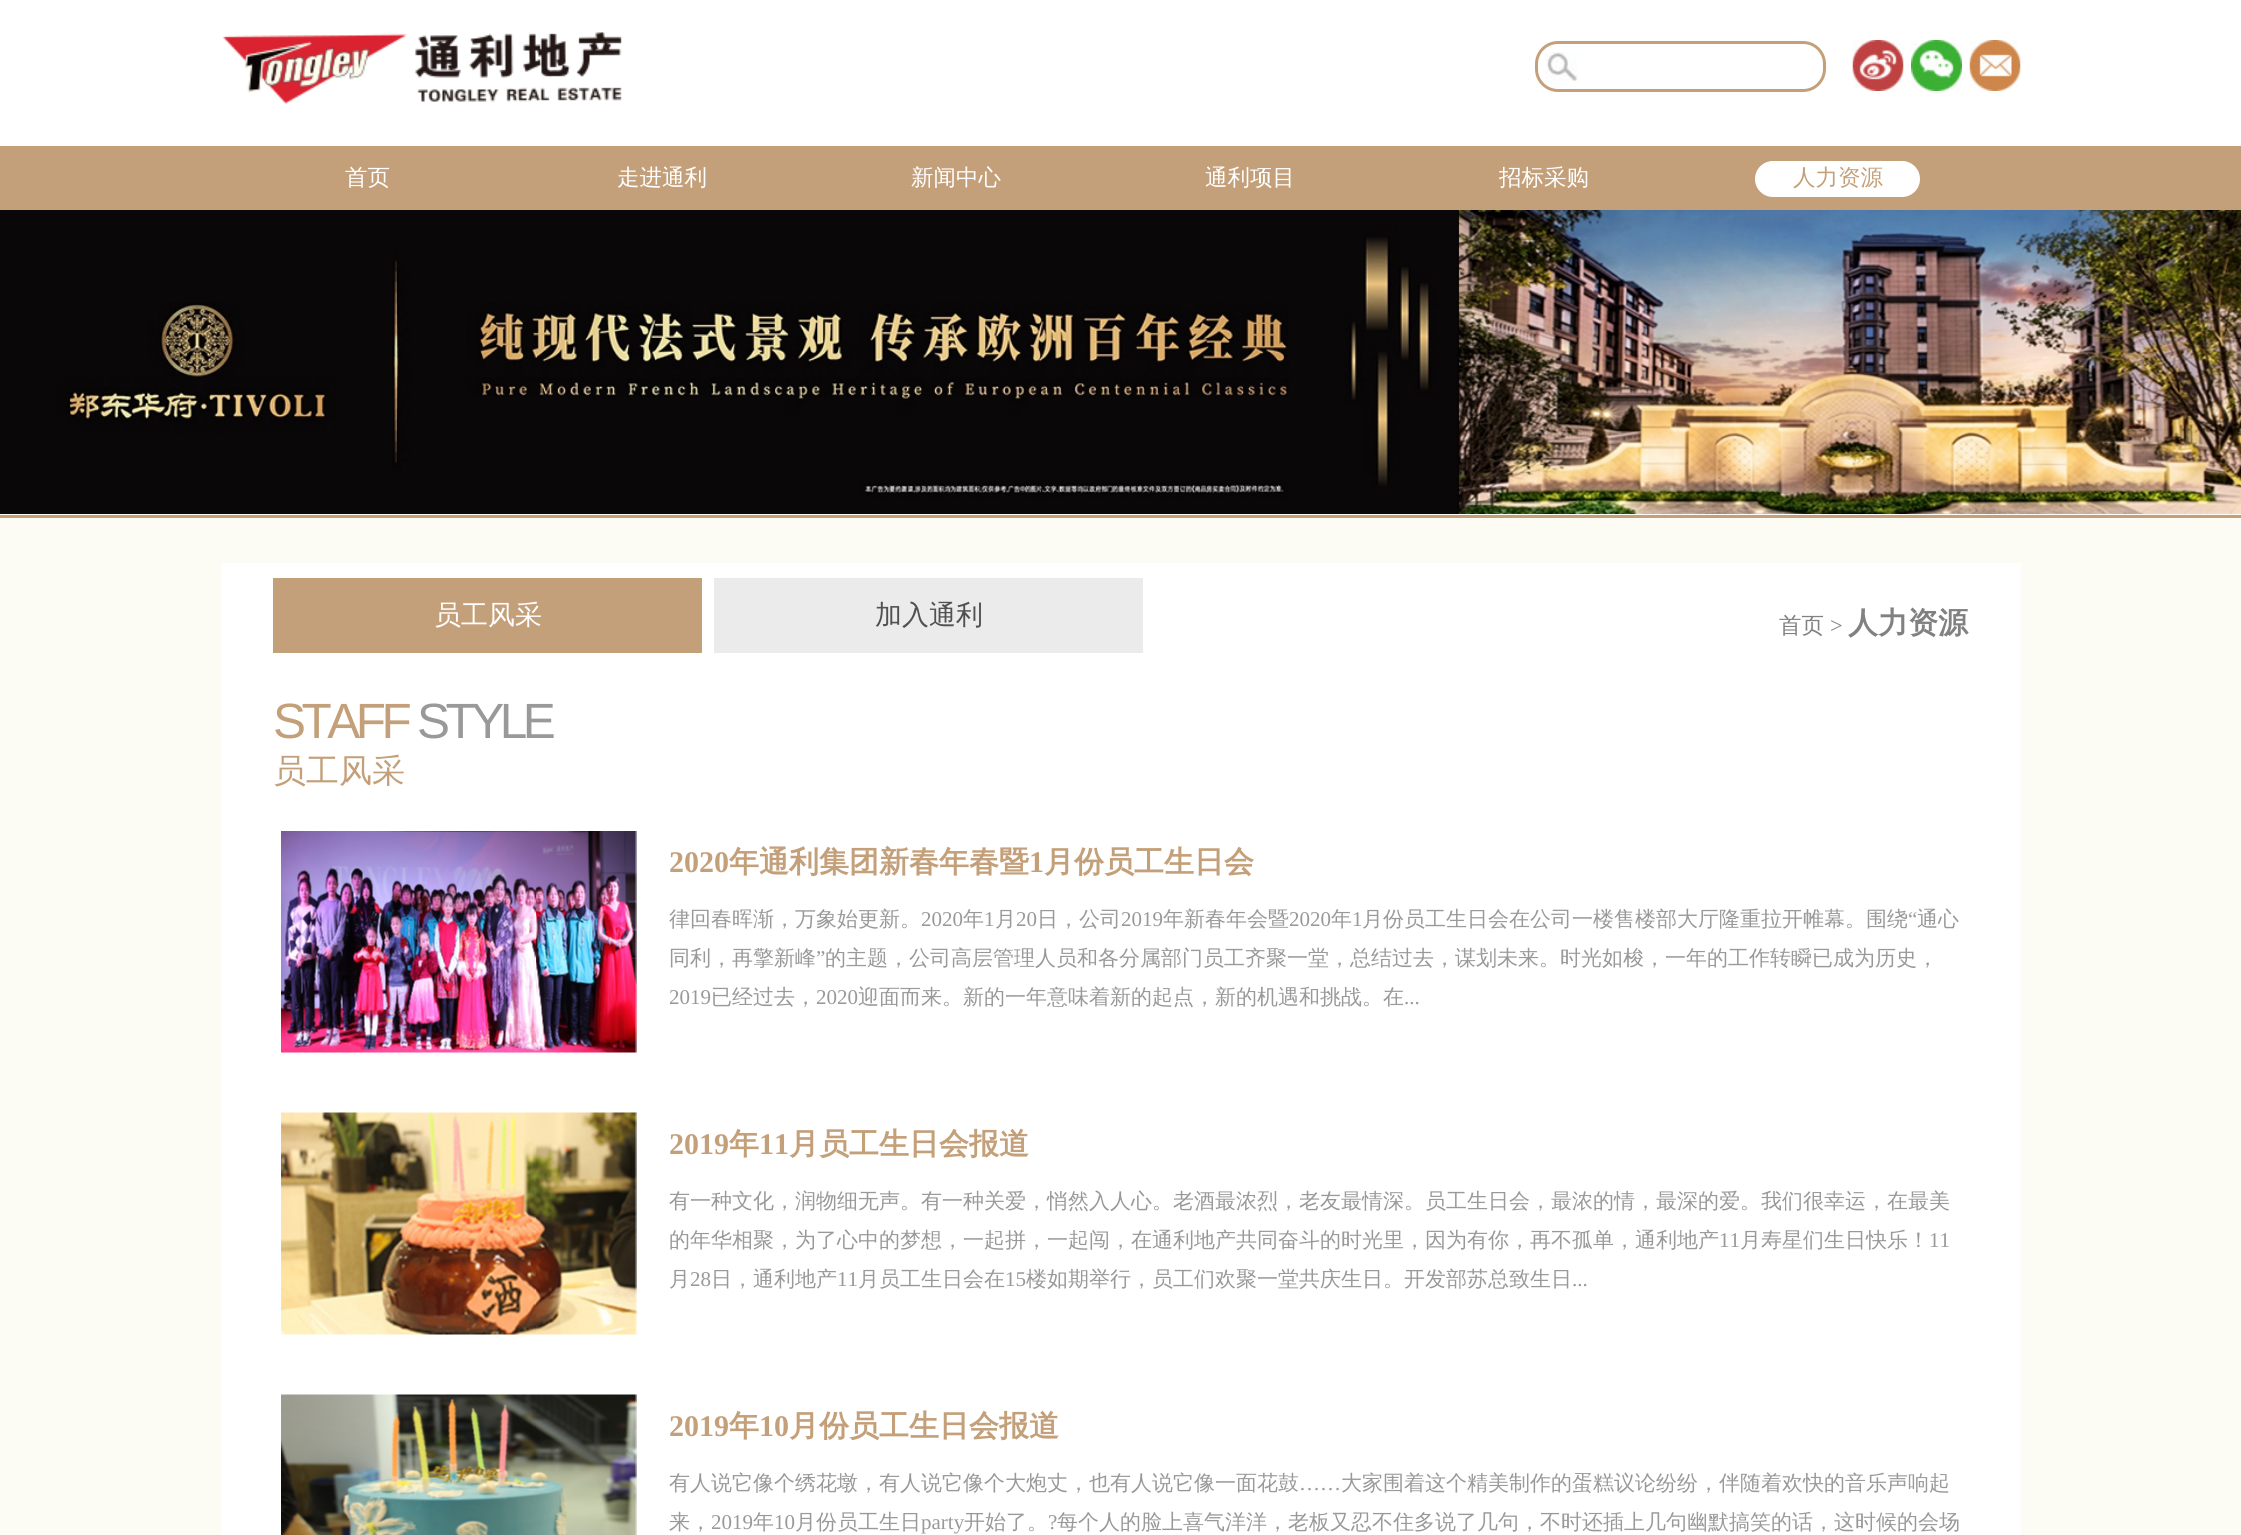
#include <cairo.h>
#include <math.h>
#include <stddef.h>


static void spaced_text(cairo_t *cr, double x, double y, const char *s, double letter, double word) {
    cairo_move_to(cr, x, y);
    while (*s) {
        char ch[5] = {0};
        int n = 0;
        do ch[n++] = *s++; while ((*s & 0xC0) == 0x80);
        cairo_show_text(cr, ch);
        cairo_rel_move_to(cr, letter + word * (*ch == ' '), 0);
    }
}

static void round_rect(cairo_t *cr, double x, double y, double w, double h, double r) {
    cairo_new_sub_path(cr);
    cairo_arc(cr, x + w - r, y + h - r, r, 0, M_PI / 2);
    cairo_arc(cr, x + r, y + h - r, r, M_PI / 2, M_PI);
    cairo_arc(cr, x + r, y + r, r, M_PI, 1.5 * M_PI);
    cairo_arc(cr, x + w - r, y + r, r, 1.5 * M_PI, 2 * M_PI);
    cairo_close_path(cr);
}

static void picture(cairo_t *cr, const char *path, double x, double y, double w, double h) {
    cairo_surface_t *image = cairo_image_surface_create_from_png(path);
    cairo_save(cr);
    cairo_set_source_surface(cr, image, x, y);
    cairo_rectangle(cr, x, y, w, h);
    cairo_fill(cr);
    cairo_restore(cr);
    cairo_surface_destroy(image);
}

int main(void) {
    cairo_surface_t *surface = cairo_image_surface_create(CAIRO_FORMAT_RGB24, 2241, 1535);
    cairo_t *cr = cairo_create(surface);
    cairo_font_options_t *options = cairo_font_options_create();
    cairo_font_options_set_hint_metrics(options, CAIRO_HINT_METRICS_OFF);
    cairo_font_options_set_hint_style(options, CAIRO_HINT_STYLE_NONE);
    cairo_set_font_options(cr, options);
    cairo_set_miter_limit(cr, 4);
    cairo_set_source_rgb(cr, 0.988, 0.988, 0.957);
    cairo_paint(cr);
    cairo_set_source_rgb(cr, 1, 1, 1);
    cairo_rectangle(cr, 0, 0, 2241, 146);
    cairo_fill(cr);
    picture(cr, "img1.png", 223, 32, 399, 72);
    round_rect(cr, 1536.5, 42.5, 288, 48, 21.5);
    cairo_set_source_rgb(cr, 0.769, 0.627, 0.478);
    cairo_set_line_width(cr, 3);
    cairo_stroke(cr);
    picture(cr, "img2.png", 1545, 52, 38, 30);
    picture(cr, "img3.png", 1852, 40, 52, 51);
    picture(cr, "img4.png", 1911, 40, 51, 51);
    picture(cr, "img5.png", 1969, 40, 52, 51);
    cairo_rectangle(cr, 0, 146, 2241, 64);
    cairo_fill(cr);
    cairo_select_font_face(cr, "WenQuanYi Zen Hei Medium", CAIRO_FONT_SLANT_NORMAL, CAIRO_FONT_WEIGHT_NORMAL);
    cairo_set_font_size(cr, 22.5);
    cairo_set_source_rgb(cr, 1, 1, 1);
    cairo_move_to(cr, 345, 185);
    cairo_show_text(cr, "首页");
    cairo_move_to(cr, 617, 185);
    cairo_show_text(cr, "走进通利");
    cairo_move_to(cr, 911, 185);
    cairo_show_text(cr, "新闻中心");
    cairo_move_to(cr, 1205, 185);
    cairo_show_text(cr, "通利项目");
    cairo_move_to(cr, 1499, 185);
    cairo_show_text(cr, "招标采购");
    round_rect(cr, 1755, 161, 165, 36, 18);
    cairo_fill(cr);
    cairo_set_source_rgb(cr, 0.769, 0.627, 0.478);
    cairo_move_to(cr, 1793, 185);
    cairo_show_text(cr, "人力资源");
    picture(cr, "img6.png", 0, 210, 2241, 304);
    cairo_rectangle(cr, 0, 515, 2241, 3);
    cairo_fill(cr);
    cairo_set_source_rgb(cr, 1, 1, 1);
    cairo_rectangle(cr, 221, 563, 1800, 972);
    cairo_fill(cr);
    cairo_set_source_rgb(cr, 0.769, 0.627, 0.478);
    cairo_rectangle(cr, 273, 578, 429, 75);
    cairo_fill(cr);
    cairo_set_font_size(cr, 27);
    cairo_set_source_rgb(cr, 1, 1, 1);
    cairo_move_to(cr, 434, 624);
    cairo_show_text(cr, "员工风采");
    cairo_set_source_rgb(cr, 0.918, 0.918, 0.918);
    cairo_rectangle(cr, 714, 578, 429, 75);
    cairo_fill(cr);
    cairo_set_source_rgb(cr, 0.318, 0.318, 0.318);
    cairo_move_to(cr, 875, 624);
    cairo_show_text(cr, "加入通利");
    cairo_set_font_size(cr, 22.5);
    cairo_set_source_rgb(cr, 0.506, 0.506, 0.506);
    cairo_move_to(cr, 1779, 633);
    cairo_show_text(cr, "首页");
    cairo_select_font_face(cr, "Liberation Serif", CAIRO_FONT_SLANT_NORMAL, CAIRO_FONT_WEIGHT_NORMAL);
    cairo_move_to(cr, 1830, 633);
    cairo_show_text(cr, ">");
    cairo_select_font_face(cr, "WenQuanYi Zen Hei", CAIRO_FONT_SLANT_NORMAL, CAIRO_FONT_WEIGHT_BOLD);
    cairo_set_font_size(cr, 30);
    cairo_move_to(cr, 1848, 633);
    cairo_show_text(cr, "人力资源");
    cairo_select_font_face(cr, "Liberation Sans", CAIRO_FONT_SLANT_NORMAL, CAIRO_FONT_WEIGHT_NORMAL);
    cairo_set_font_size(cr, 49.5);
    cairo_set_source_rgb(cr, 0.769, 0.627, 0.478);
    spaced_text(cr, 273, 738, "STAFF", -4.5, 0);
    cairo_set_source_rgb(cr, 0.6, 0.6, 0.6);
    spaced_text(cr, 417, 738, "STYLE", -4.5, 0);
    cairo_select_font_face(cr, "WenQuanYi Zen Hei Medium", CAIRO_FONT_SLANT_NORMAL, CAIRO_FONT_WEIGHT_NORMAL);
    cairo_set_font_size(cr, 33);
    cairo_set_source_rgb(cr, 0.769, 0.627, 0.478);
    cairo_move_to(cr, 273, 782);
    cairo_show_text(cr, "员工风采");
    picture(cr, "img7.png", 281, 831, 356, 222);
    cairo_select_font_face(cr, "Liberation Serif", CAIRO_FONT_SLANT_NORMAL, CAIRO_FONT_WEIGHT_BOLD);
    cairo_set_font_size(cr, 30);
    cairo_move_to(cr, 669, 872);
    cairo_show_text(cr, "2020");
    cairo_select_font_face(cr, "WenQuanYi Zen Hei", CAIRO_FONT_SLANT_NORMAL, CAIRO_FONT_WEIGHT_BOLD);
    cairo_move_to(cr, 729, 872);
    cairo_show_text(cr, "年通利集团新春年春暨");
    cairo_select_font_face(cr, "Liberation Serif", CAIRO_FONT_SLANT_NORMAL, CAIRO_FONT_WEIGHT_BOLD);
    cairo_move_to(cr, 1029, 872);
    cairo_show_text(cr, "1");
    cairo_select_font_face(cr, "WenQuanYi Zen Hei", CAIRO_FONT_SLANT_NORMAL, CAIRO_FONT_WEIGHT_BOLD);
    cairo_move_to(cr, 1044, 872);
    cairo_show_text(cr, "月份员工生日会");
    cairo_select_font_face(cr, "WenQuanYi Zen Hei Medium", CAIRO_FONT_SLANT_NORMAL, CAIRO_FONT_WEIGHT_NORMAL);
    cairo_set_font_size(cr, 21);
    cairo_set_source_rgb(cr, 0.6, 0.6, 0.6);
    cairo_move_to(cr, 669, 926);
    cairo_show_text(cr, "律回春晖渐，万象始更新。");
    cairo_select_font_face(cr, "Liberation Serif", CAIRO_FONT_SLANT_NORMAL, CAIRO_FONT_WEIGHT_NORMAL);
    cairo_move_to(cr, 921, 926);
    cairo_show_text(cr, "2020");
    cairo_select_font_face(cr, "WenQuanYi Zen Hei Medium", CAIRO_FONT_SLANT_NORMAL, CAIRO_FONT_WEIGHT_NORMAL);
    cairo_move_to(cr, 963, 926);
    cairo_show_text(cr, "年");
    cairo_select_font_face(cr, "Liberation Serif", CAIRO_FONT_SLANT_NORMAL, CAIRO_FONT_WEIGHT_NORMAL);
    cairo_move_to(cr, 984, 926);
    cairo_show_text(cr, "1");
    cairo_select_font_face(cr, "WenQuanYi Zen Hei Medium", CAIRO_FONT_SLANT_NORMAL, CAIRO_FONT_WEIGHT_NORMAL);
    cairo_move_to(cr, 995, 926);
    cairo_show_text(cr, "月");
    cairo_select_font_face(cr, "Liberation Serif", CAIRO_FONT_SLANT_NORMAL, CAIRO_FONT_WEIGHT_NORMAL);
    cairo_move_to(cr, 1016, 926);
    cairo_show_text(cr, "20");
    cairo_select_font_face(cr, "WenQuanYi Zen Hei Medium", CAIRO_FONT_SLANT_NORMAL, CAIRO_FONT_WEIGHT_NORMAL);
    cairo_move_to(cr, 1037, 926);
    cairo_show_text(cr, "日，公司");
    cairo_select_font_face(cr, "Liberation Serif", CAIRO_FONT_SLANT_NORMAL, CAIRO_FONT_WEIGHT_NORMAL);
    cairo_move_to(cr, 1121, 926);
    cairo_show_text(cr, "2019");
    cairo_select_font_face(cr, "WenQuanYi Zen Hei Medium", CAIRO_FONT_SLANT_NORMAL, CAIRO_FONT_WEIGHT_NORMAL);
    cairo_move_to(cr, 1163, 926);
    cairo_show_text(cr, "年新春年会暨");
    cairo_select_font_face(cr, "Liberation Serif", CAIRO_FONT_SLANT_NORMAL, CAIRO_FONT_WEIGHT_NORMAL);
    cairo_move_to(cr, 1289, 926);
    cairo_show_text(cr, "2020");
    cairo_select_font_face(cr, "WenQuanYi Zen Hei Medium", CAIRO_FONT_SLANT_NORMAL, CAIRO_FONT_WEIGHT_NORMAL);
    cairo_move_to(cr, 1331, 926);
    cairo_show_text(cr, "年");
    cairo_select_font_face(cr, "Liberation Serif", CAIRO_FONT_SLANT_NORMAL, CAIRO_FONT_WEIGHT_NORMAL);
    cairo_move_to(cr, 1352, 926);
    cairo_show_text(cr, "1");
    cairo_select_font_face(cr, "WenQuanYi Zen Hei Medium", CAIRO_FONT_SLANT_NORMAL, CAIRO_FONT_WEIGHT_NORMAL);
    cairo_move_to(cr, 1362, 926);
    cairo_show_text(cr, "月份员工生日会在公司一楼售楼部大厅隆重拉开帷幕。围绕");
    cairo_select_font_face(cr, "Liberation Serif", CAIRO_FONT_SLANT_NORMAL, CAIRO_FONT_WEIGHT_NORMAL);
    cairo_move_to(cr, 1908, 926);
    cairo_show_text(cr, "“");
    cairo_select_font_face(cr, "WenQuanYi Zen Hei Medium", CAIRO_FONT_SLANT_NORMAL, CAIRO_FONT_WEIGHT_NORMAL);
    cairo_move_to(cr, 1917, 926);
    cairo_show_text(cr, "通心");
    cairo_move_to(cr, 669, 965);
    cairo_show_text(cr, "同利，再擎新峰");
    cairo_select_font_face(cr, "Liberation Serif", CAIRO_FONT_SLANT_NORMAL, CAIRO_FONT_WEIGHT_NORMAL);
    cairo_move_to(cr, 816, 965);
    cairo_show_text(cr, "”");
    cairo_select_font_face(cr, "WenQuanYi Zen Hei Medium", CAIRO_FONT_SLANT_NORMAL, CAIRO_FONT_WEIGHT_NORMAL);
    cairo_move_to(cr, 825, 965);
    cairo_show_text(cr, "的主题，公司高层管理人员和各分属部门员工齐聚一堂，总结过去，谋划未来。时光如梭，一年的工作转瞬已成为历史，");
    cairo_select_font_face(cr, "Liberation Serif", CAIRO_FONT_SLANT_NORMAL, CAIRO_FONT_WEIGHT_NORMAL);
    cairo_move_to(cr, 669, 1004);
    cairo_show_text(cr, "2019");
    cairo_select_font_face(cr, "WenQuanYi Zen Hei Medium", CAIRO_FONT_SLANT_NORMAL, CAIRO_FONT_WEIGHT_NORMAL);
    cairo_move_to(cr, 711, 1004);
    cairo_show_text(cr, "已经过去，");
    cairo_select_font_face(cr, "Liberation Serif", CAIRO_FONT_SLANT_NORMAL, CAIRO_FONT_WEIGHT_NORMAL);
    cairo_move_to(cr, 816, 1004);
    cairo_show_text(cr, "2020");
    cairo_select_font_face(cr, "WenQuanYi Zen Hei Medium", CAIRO_FONT_SLANT_NORMAL, CAIRO_FONT_WEIGHT_NORMAL);
    cairo_move_to(cr, 858, 1004);
    cairo_show_text(cr, "迎面而来。新的一年意味着新的起点，新的机遇和挑战。在");
    cairo_select_font_face(cr, "Liberation Serif", CAIRO_FONT_SLANT_NORMAL, CAIRO_FONT_WEIGHT_NORMAL);
    cairo_move_to(cr, 1404, 1004);
    cairo_show_text(cr, "...");
    picture(cr, "img8.png", 281, 1112, 356, 223);
    cairo_select_font_face(cr, "Liberation Serif", CAIRO_FONT_SLANT_NORMAL, CAIRO_FONT_WEIGHT_BOLD);
    cairo_set_font_size(cr, 30);
    cairo_set_source_rgb(cr, 0.769, 0.627, 0.478);
    cairo_move_to(cr, 669, 1154);
    cairo_show_text(cr, "2019");
    cairo_select_font_face(cr, "WenQuanYi Zen Hei", CAIRO_FONT_SLANT_NORMAL, CAIRO_FONT_WEIGHT_BOLD);
    cairo_move_to(cr, 729, 1154);
    cairo_show_text(cr, "年");
    cairo_select_font_face(cr, "Liberation Serif", CAIRO_FONT_SLANT_NORMAL, CAIRO_FONT_WEIGHT_BOLD);
    cairo_move_to(cr, 759, 1154);
    cairo_show_text(cr, "11");
    cairo_select_font_face(cr, "WenQuanYi Zen Hei", CAIRO_FONT_SLANT_NORMAL, CAIRO_FONT_WEIGHT_BOLD);
    cairo_move_to(cr, 789, 1154);
    cairo_show_text(cr, "月员工生日会报道");
    cairo_select_font_face(cr, "WenQuanYi Zen Hei Medium", CAIRO_FONT_SLANT_NORMAL, CAIRO_FONT_WEIGHT_NORMAL);
    cairo_set_font_size(cr, 21);
    cairo_set_source_rgb(cr, 0.6, 0.6, 0.6);
    cairo_move_to(cr, 669, 1208);
    cairo_show_text(cr, "有一种文化，润物细无声。有一种关爱，悄然入人心。老酒最浓烈，老友最情深。员工生日会，最浓的情，最深的爱。我们很幸运，在最美");
    cairo_move_to(cr, 669, 1247);
    cairo_show_text(cr, "的年华相聚，为了心中的梦想，一起拼，一起闯，在通利地产共同奋斗的时光里，因为有你，再不孤单，通利地产");
    cairo_select_font_face(cr, "Liberation Serif", CAIRO_FONT_SLANT_NORMAL, CAIRO_FONT_WEIGHT_NORMAL);
    cairo_move_to(cr, 1719, 1247);
    cairo_show_text(cr, "11");
    cairo_select_font_face(cr, "WenQuanYi Zen Hei Medium", CAIRO_FONT_SLANT_NORMAL, CAIRO_FONT_WEIGHT_NORMAL);
    cairo_move_to(cr, 1740, 1247);
    cairo_show_text(cr, "月寿星们生日快乐！");
    cairo_select_font_face(cr, "Liberation Serif", CAIRO_FONT_SLANT_NORMAL, CAIRO_FONT_WEIGHT_NORMAL);
    cairo_move_to(cr, 1929, 1247);
    cairo_show_text(cr, "11");
    cairo_select_font_face(cr, "WenQuanYi Zen Hei Medium", CAIRO_FONT_SLANT_NORMAL, CAIRO_FONT_WEIGHT_NORMAL);
    cairo_move_to(cr, 669, 1286);
    cairo_show_text(cr, "月");
    cairo_select_font_face(cr, "Liberation Serif", CAIRO_FONT_SLANT_NORMAL, CAIRO_FONT_WEIGHT_NORMAL);
    cairo_move_to(cr, 690, 1286);
    cairo_show_text(cr, "28");
    cairo_select_font_face(cr, "WenQuanYi Zen Hei Medium", CAIRO_FONT_SLANT_NORMAL, CAIRO_FONT_WEIGHT_NORMAL);
    cairo_move_to(cr, 711, 1286);
    cairo_show_text(cr, "日，通利地产");
    cairo_select_font_face(cr, "Liberation Serif", CAIRO_FONT_SLANT_NORMAL, CAIRO_FONT_WEIGHT_NORMAL);
    cairo_move_to(cr, 837, 1286);
    cairo_show_text(cr, "11");
    cairo_select_font_face(cr, "WenQuanYi Zen Hei Medium", CAIRO_FONT_SLANT_NORMAL, CAIRO_FONT_WEIGHT_NORMAL);
    cairo_move_to(cr, 858, 1286);
    cairo_show_text(cr, "月员工生日会在");
    cairo_select_font_face(cr, "Liberation Serif", CAIRO_FONT_SLANT_NORMAL, CAIRO_FONT_WEIGHT_NORMAL);
    cairo_move_to(cr, 1005, 1286);
    cairo_show_text(cr, "15");
    cairo_select_font_face(cr, "WenQuanYi Zen Hei Medium", CAIRO_FONT_SLANT_NORMAL, CAIRO_FONT_WEIGHT_NORMAL);
    cairo_move_to(cr, 1026, 1286);
    cairo_show_text(cr, "楼如期举行，员工们欢聚一堂共庆生日。开发部苏总致生日");
    cairo_select_font_face(cr, "Liberation Serif", CAIRO_FONT_SLANT_NORMAL, CAIRO_FONT_WEIGHT_NORMAL);
    cairo_move_to(cr, 1572, 1286);
    cairo_show_text(cr, "...");
    picture(cr, "img9.png", 281, 1394, 356, 141);
    cairo_select_font_face(cr, "Liberation Serif", CAIRO_FONT_SLANT_NORMAL, CAIRO_FONT_WEIGHT_BOLD);
    cairo_set_font_size(cr, 30);
    cairo_set_source_rgb(cr, 0.769, 0.627, 0.478);
    cairo_move_to(cr, 669, 1436);
    cairo_show_text(cr, "2019");
    cairo_select_font_face(cr, "WenQuanYi Zen Hei", CAIRO_FONT_SLANT_NORMAL, CAIRO_FONT_WEIGHT_BOLD);
    cairo_move_to(cr, 729, 1436);
    cairo_show_text(cr, "年");
    cairo_select_font_face(cr, "Liberation Serif", CAIRO_FONT_SLANT_NORMAL, CAIRO_FONT_WEIGHT_BOLD);
    cairo_move_to(cr, 759, 1436);
    cairo_show_text(cr, "10");
    cairo_select_font_face(cr, "WenQuanYi Zen Hei", CAIRO_FONT_SLANT_NORMAL, CAIRO_FONT_WEIGHT_BOLD);
    cairo_move_to(cr, 789, 1436);
    cairo_show_text(cr, "月份员工生日会报道");
    cairo_select_font_face(cr, "WenQuanYi Zen Hei Medium", CAIRO_FONT_SLANT_NORMAL, CAIRO_FONT_WEIGHT_NORMAL);
    cairo_set_font_size(cr, 21);
    cairo_set_source_rgb(cr, 0.6, 0.6, 0.6);
    cairo_move_to(cr, 669, 1490);
    cairo_show_text(cr, "有人说它像个绣花墩，有人说它像个大炮丈，也有人说它像一面花鼓");
    cairo_select_font_face(cr, "Liberation Serif", CAIRO_FONT_SLANT_NORMAL, CAIRO_FONT_WEIGHT_NORMAL);
    cairo_move_to(cr, 1299, 1490);
    cairo_show_text(cr, "……");
    cairo_select_font_face(cr, "WenQuanYi Zen Hei Medium", CAIRO_FONT_SLANT_NORMAL, CAIRO_FONT_WEIGHT_NORMAL);
    cairo_move_to(cr, 1341, 1490);
    cairo_show_text(cr, "大家围着这个精美制作的蛋糕议论纷纷，伴随着欢快的音乐声响起");
    cairo_move_to(cr, 669, 1529);
    cairo_show_text(cr, "来，");
    cairo_select_font_face(cr, "Liberation Serif", CAIRO_FONT_SLANT_NORMAL, CAIRO_FONT_WEIGHT_NORMAL);
    cairo_move_to(cr, 711, 1529);
    cairo_show_text(cr, "2019");
    cairo_select_font_face(cr, "WenQuanYi Zen Hei Medium", CAIRO_FONT_SLANT_NORMAL, CAIRO_FONT_WEIGHT_NORMAL);
    cairo_move_to(cr, 753, 1529);
    cairo_show_text(cr, "年");
    cairo_select_font_face(cr, "Liberation Serif", CAIRO_FONT_SLANT_NORMAL, CAIRO_FONT_WEIGHT_NORMAL);
    cairo_move_to(cr, 774, 1529);
    cairo_show_text(cr, "10");
    cairo_select_font_face(cr, "WenQuanYi Zen Hei Medium", CAIRO_FONT_SLANT_NORMAL, CAIRO_FONT_WEIGHT_NORMAL);
    cairo_move_to(cr, 795, 1529);
    cairo_show_text(cr, "月份员工生日");
    cairo_select_font_face(cr, "Liberation Serif", CAIRO_FONT_SLANT_NORMAL, CAIRO_FONT_WEIGHT_NORMAL);
    cairo_move_to(cr, 921, 1529);
    cairo_show_text(cr, "party");
    cairo_select_font_face(cr, "WenQuanYi Zen Hei Medium", CAIRO_FONT_SLANT_NORMAL, CAIRO_FONT_WEIGHT_NORMAL);
    cairo_move_to(cr, 964, 1529);
    cairo_show_text(cr, "开始了。");
    cairo_select_font_face(cr, "Liberation Serif", CAIRO_FONT_SLANT_NORMAL, CAIRO_FONT_WEIGHT_NORMAL);
    cairo_move_to(cr, 1048, 1529);
    cairo_show_text(cr, "?");
    cairo_select_font_face(cr, "WenQuanYi Zen Hei Medium", CAIRO_FONT_SLANT_NORMAL, CAIRO_FONT_WEIGHT_NORMAL);
    cairo_move_to(cr, 1057, 1529);
    cairo_show_text(cr, "每个人的脸上喜气洋洋，老板又忍不住多说了几句，不时还插上几句幽默搞笑的话，这时候的会场");
    cairo_surface_write_to_png(surface, "page.png");
    cairo_font_options_destroy(options);
    cairo_destroy(cr);
    cairo_surface_destroy(surface);
    return 0;
}
